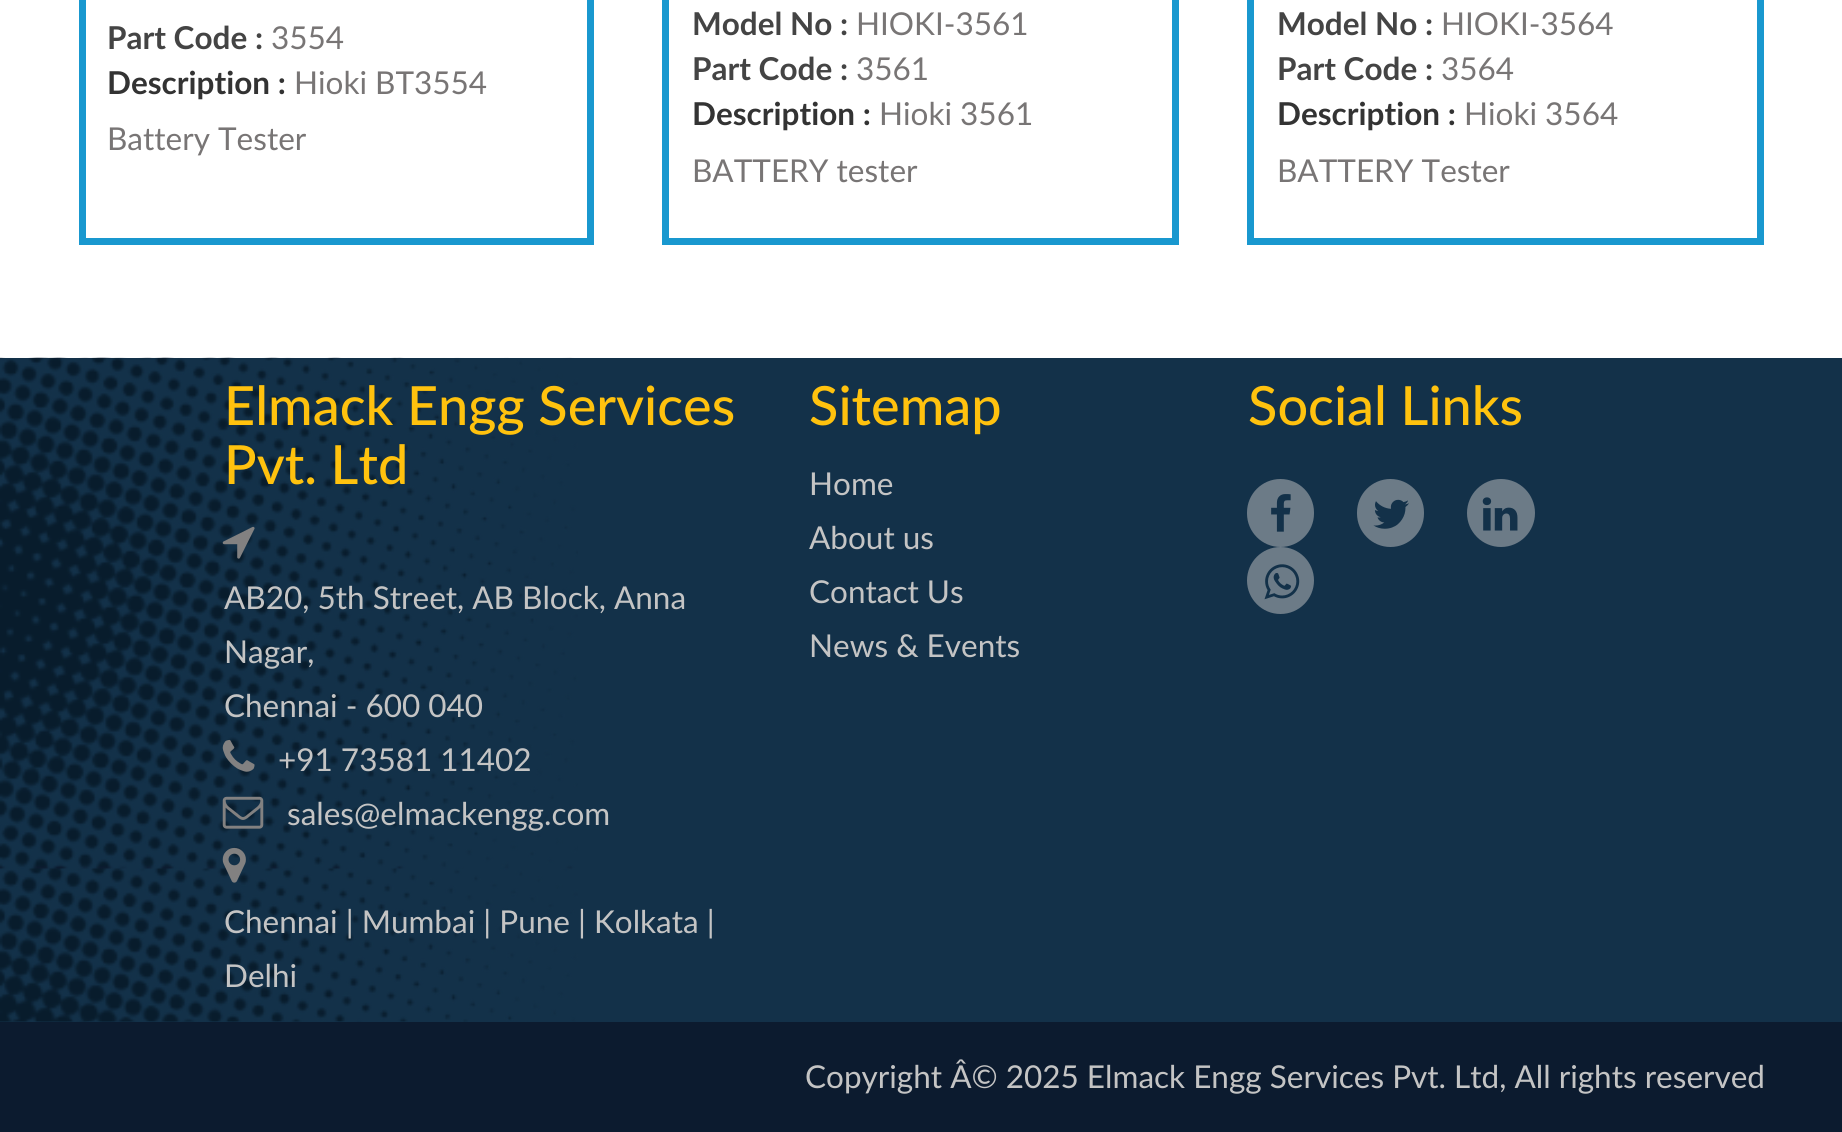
#include <cairo.h>
#include <math.h>
#include <stddef.h>


static void round_rect(cairo_t *cr, double x, double y, double w, double h, double r) {
    cairo_new_sub_path(cr);
    cairo_arc(cr, x + w - r, y + h - r, r, 0, M_PI / 2);
    cairo_arc(cr, x + r, y + h - r, r, M_PI / 2, M_PI);
    cairo_arc(cr, x + r, y + r, r, M_PI, 1.5 * M_PI);
    cairo_arc(cr, x + w - r, y + r, r, 1.5 * M_PI, 2 * M_PI);
    cairo_close_path(cr);
}

static void picture(cairo_t *cr, const char *path, double x, double y, double w, double h) {
    cairo_surface_t *image = cairo_image_surface_create_from_png(path);
    cairo_save(cr);
    cairo_set_source_surface(cr, image, x, y);
    cairo_rectangle(cr, x, y, w, h);
    cairo_fill(cr);
    cairo_restore(cr);
    cairo_surface_destroy(image);
}

int main(void) {
    cairo_surface_t *surface = cairo_image_surface_create(CAIRO_FORMAT_RGB24, 1842, 1132);
    cairo_t *cr = cairo_create(surface);
    cairo_font_options_t *options = cairo_font_options_create();
    cairo_font_options_set_hint_metrics(options, CAIRO_HINT_METRICS_OFF);
    cairo_font_options_set_hint_style(options, CAIRO_HINT_STYLE_NONE);
    cairo_set_font_options(cr, options);
    cairo_set_miter_limit(cr, 4);
    cairo_set_source_rgb(cr, 1, 1, 1);
    cairo_paint(cr);
    cairo_rectangle(cr, 82.5, -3.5, 508, 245);
    cairo_set_source_rgb(cr, 0.098, 0.596, 0.812);
    cairo_set_line_width(cr, 7);
    cairo_stroke(cr);
    cairo_select_font_face(cr, "Lato", CAIRO_FONT_SLANT_NORMAL, CAIRO_FONT_WEIGHT_BOLD);
    cairo_set_font_size(cr, 31.5);
    cairo_set_source_rgb(cr, 0.267, 0.267, 0.267);
    cairo_move_to(cr, 107, 49);
    cairo_show_text(cr, "Part Code :");
    cairo_select_font_face(cr, "Lato", CAIRO_FONT_SLANT_NORMAL, CAIRO_FONT_WEIGHT_NORMAL);
    cairo_set_source_rgb(cr, 0.471, 0.459, 0.459);
    cairo_move_to(cr, 271, 49);
    cairo_show_text(cr, "3554");
    cairo_select_font_face(cr, "Lato", CAIRO_FONT_SLANT_NORMAL, CAIRO_FONT_WEIGHT_BOLD);
    cairo_set_source_rgb(cr, 0.2, 0.2, 0.2);
    cairo_move_to(cr, 107, 94);
    cairo_show_text(cr, "Description :");
    cairo_select_font_face(cr, "Lato", CAIRO_FONT_SLANT_NORMAL, CAIRO_FONT_WEIGHT_NORMAL);
    cairo_set_source_rgb(cr, 0.471, 0.459, 0.459);
    cairo_move_to(cr, 294, 94);
    cairo_show_text(cr, "Hioki BT3554");
    cairo_move_to(cr, 107, 150);
    cairo_show_text(cr, "Battery Tester");
    cairo_rectangle(cr, 665.5, -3.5, 510, 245);
    cairo_set_source_rgb(cr, 0.098, 0.596, 0.812);
    cairo_stroke(cr);
    cairo_select_font_face(cr, "Lato", CAIRO_FONT_SLANT_NORMAL, CAIRO_FONT_WEIGHT_BOLD);
    cairo_set_source_rgb(cr, 0.267, 0.267, 0.267);
    cairo_move_to(cr, 692, 35);
    cairo_show_text(cr, "Model No :");
    cairo_select_font_face(cr, "Lato", CAIRO_FONT_SLANT_NORMAL, CAIRO_FONT_WEIGHT_NORMAL);
    cairo_set_source_rgb(cr, 0.471, 0.459, 0.459);
    cairo_move_to(cr, 856, 35);
    cairo_show_text(cr, "HIOKI-3561");
    cairo_select_font_face(cr, "Lato", CAIRO_FONT_SLANT_NORMAL, CAIRO_FONT_WEIGHT_BOLD);
    cairo_set_source_rgb(cr, 0.267, 0.267, 0.267);
    cairo_move_to(cr, 692, 80);
    cairo_show_text(cr, "Part Code :");
    cairo_select_font_face(cr, "Lato", CAIRO_FONT_SLANT_NORMAL, CAIRO_FONT_WEIGHT_NORMAL);
    cairo_set_source_rgb(cr, 0.471, 0.459, 0.459);
    cairo_move_to(cr, 856, 80);
    cairo_show_text(cr, "3561");
    cairo_select_font_face(cr, "Lato", CAIRO_FONT_SLANT_NORMAL, CAIRO_FONT_WEIGHT_BOLD);
    cairo_set_source_rgb(cr, 0.2, 0.2, 0.2);
    cairo_move_to(cr, 692, 125);
    cairo_show_text(cr, "Description :");
    cairo_select_font_face(cr, "Lato", CAIRO_FONT_SLANT_NORMAL, CAIRO_FONT_WEIGHT_NORMAL);
    cairo_set_source_rgb(cr, 0.471, 0.459, 0.459);
    cairo_move_to(cr, 879, 125);
    cairo_show_text(cr, "Hioki 3561");
    cairo_move_to(cr, 692, 182);
    cairo_show_text(cr, "BATTERY tester");
    cairo_rectangle(cr, 1250.5, -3.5, 510, 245);
    cairo_set_source_rgb(cr, 0.098, 0.596, 0.812);
    cairo_stroke(cr);
    cairo_select_font_face(cr, "Lato", CAIRO_FONT_SLANT_NORMAL, CAIRO_FONT_WEIGHT_BOLD);
    cairo_set_source_rgb(cr, 0.267, 0.267, 0.267);
    cairo_move_to(cr, 1277, 35);
    cairo_show_text(cr, "Model No :");
    cairo_select_font_face(cr, "Lato", CAIRO_FONT_SLANT_NORMAL, CAIRO_FONT_WEIGHT_NORMAL);
    cairo_set_source_rgb(cr, 0.471, 0.459, 0.459);
    cairo_move_to(cr, 1441, 35);
    cairo_show_text(cr, "HIOKI-3564");
    cairo_select_font_face(cr, "Lato", CAIRO_FONT_SLANT_NORMAL, CAIRO_FONT_WEIGHT_BOLD);
    cairo_set_source_rgb(cr, 0.267, 0.267, 0.267);
    cairo_move_to(cr, 1277, 80);
    cairo_show_text(cr, "Part Code :");
    cairo_select_font_face(cr, "Lato", CAIRO_FONT_SLANT_NORMAL, CAIRO_FONT_WEIGHT_NORMAL);
    cairo_set_source_rgb(cr, 0.471, 0.459, 0.459);
    cairo_move_to(cr, 1441, 80);
    cairo_show_text(cr, "3564");
    cairo_select_font_face(cr, "Lato", CAIRO_FONT_SLANT_NORMAL, CAIRO_FONT_WEIGHT_BOLD);
    cairo_set_source_rgb(cr, 0.2, 0.2, 0.2);
    cairo_move_to(cr, 1277, 125);
    cairo_show_text(cr, "Description :");
    cairo_select_font_face(cr, "Lato", CAIRO_FONT_SLANT_NORMAL, CAIRO_FONT_WEIGHT_NORMAL);
    cairo_set_source_rgb(cr, 0.471, 0.459, 0.459);
    cairo_move_to(cr, 1464, 125);
    cairo_show_text(cr, "Hioki 3564");
    cairo_move_to(cr, 1277, 182);
    cairo_show_text(cr, "BATTERY Tester");
    cairo_set_source_rgb(cr, 0.075, 0.192, 0.286);
    cairo_rectangle(cr, 0, 358, 1842, 664);
    cairo_fill(cr);
    picture(cr, "img1.png", 0, 357, 578, 665);
    cairo_select_font_face(cr, "Lato Medium", CAIRO_FONT_SLANT_NORMAL, CAIRO_FONT_WEIGHT_NORMAL);
    cairo_set_font_size(cr, 54);
    cairo_set_source_rgb(cr, 1, 0.761, 0.055);
    cairo_move_to(cr, 224, 425);
    cairo_show_text(cr, "Elmack Engg Services");
    cairo_move_to(cr, 224, 484);
    cairo_show_text(cr, "Pvt. Ltd");
    picture(cr, "img2.png", 222, 526, 33, 33);
    cairo_select_font_face(cr, "Lato", CAIRO_FONT_SLANT_NORMAL, CAIRO_FONT_WEIGHT_NORMAL);
    cairo_set_font_size(cr, 31.5);
    cairo_set_source_rgb(cr, 0.769, 0.769, 0.769);
    cairo_move_to(cr, 224, 609);
    cairo_show_text(cr, "AB20, 5th Street, AB Block, Anna");
    cairo_move_to(cr, 224, 663);
    cairo_show_text(cr, "Nagar,");
    cairo_move_to(cr, 224, 717);
    cairo_show_text(cr, "Chennai - 600 040");
    picture(cr, "img3.png", 222, 739, 33, 33);
    cairo_move_to(cr, 278, 771);
    cairo_show_text(cr, "+91 73581 11402");
    picture(cr, "img4.png", 222, 796, 42, 33);
    cairo_move_to(cr, 287, 825);
    cairo_show_text(cr, "sales@elmackengg.com");
    picture(cr, "img5.png", 222, 847, 24, 36);
    cairo_move_to(cr, 224, 933);
    cairo_show_text(cr, "Chennai | Mumbai | Pune | Kolkata |");
    cairo_move_to(cr, 224, 987);
    cairo_show_text(cr, "Delhi");
    cairo_select_font_face(cr, "Lato Medium", CAIRO_FONT_SLANT_NORMAL, CAIRO_FONT_WEIGHT_NORMAL);
    cairo_set_font_size(cr, 54);
    cairo_set_source_rgb(cr, 1, 0.761, 0.055);
    cairo_move_to(cr, 809, 425);
    cairo_show_text(cr, "Sitemap");
    cairo_select_font_face(cr, "Lato", CAIRO_FONT_SLANT_NORMAL, CAIRO_FONT_WEIGHT_NORMAL);
    cairo_set_font_size(cr, 31.5);
    cairo_set_source_rgb(cr, 0.769, 0.769, 0.769);
    cairo_move_to(cr, 809, 495);
    cairo_show_text(cr, "Home");
    cairo_move_to(cr, 809, 549);
    cairo_show_text(cr, "About us");
    cairo_move_to(cr, 809, 603);
    cairo_show_text(cr, "Contact Us");
    cairo_move_to(cr, 809, 657);
    cairo_show_text(cr, "News & Events");
    cairo_select_font_face(cr, "Lato Medium", CAIRO_FONT_SLANT_NORMAL, CAIRO_FONT_WEIGHT_NORMAL);
    cairo_set_font_size(cr, 54);
    cairo_set_source_rgb(cr, 1, 0.761, 0.055);
    cairo_move_to(cr, 1248, 425);
    cairo_show_text(cr, "Social Links");
    cairo_set_source_rgb(cr, 0.424, 0.482, 0.529);
    round_rect(cr, 1247, 479, 67, 68, 33.5);
    cairo_fill(cr);
    picture(cr, "img6.png", 1271, 494, 20, 38);
    round_rect(cr, 1357, 479, 67, 68, 33.5);
    cairo_fill(cr);
    picture(cr, "img7.png", 1373, 499, 36, 30);
    cairo_arc(cr, 1501, 513, 34, 0, 2 * M_PI);
    cairo_fill(cr);
    picture(cr, "img8.png", 1482, 497, 36, 34);
    cairo_arc(cr, 1280.5, 580.5, 33.5, 0, 2 * M_PI);
    cairo_fill(cr);
    picture(cr, "img9.png", 1264, 564, 36, 36);
    cairo_set_source_rgb(cr, 0.047, 0.106, 0.184);
    cairo_rectangle(cr, 0, 1022, 1842, 110);
    cairo_fill(cr);
    cairo_select_font_face(cr, "Lato", CAIRO_FONT_SLANT_NORMAL, CAIRO_FONT_WEIGHT_NORMAL);
    cairo_set_font_size(cr, 31.5);
    cairo_set_source_rgb(cr, 0.769, 0.769, 0.769);
    cairo_move_to(cr, 805, 1088);
    cairo_show_text(cr, "Copyright Â© 2025 Elmack Engg Services Pvt. Ltd, All rights reserved");
    cairo_surface_write_to_png(surface, "page.png");
    cairo_font_options_destroy(options);
    cairo_destroy(cr);
    cairo_surface_destroy(surface);
    return 0;
}
